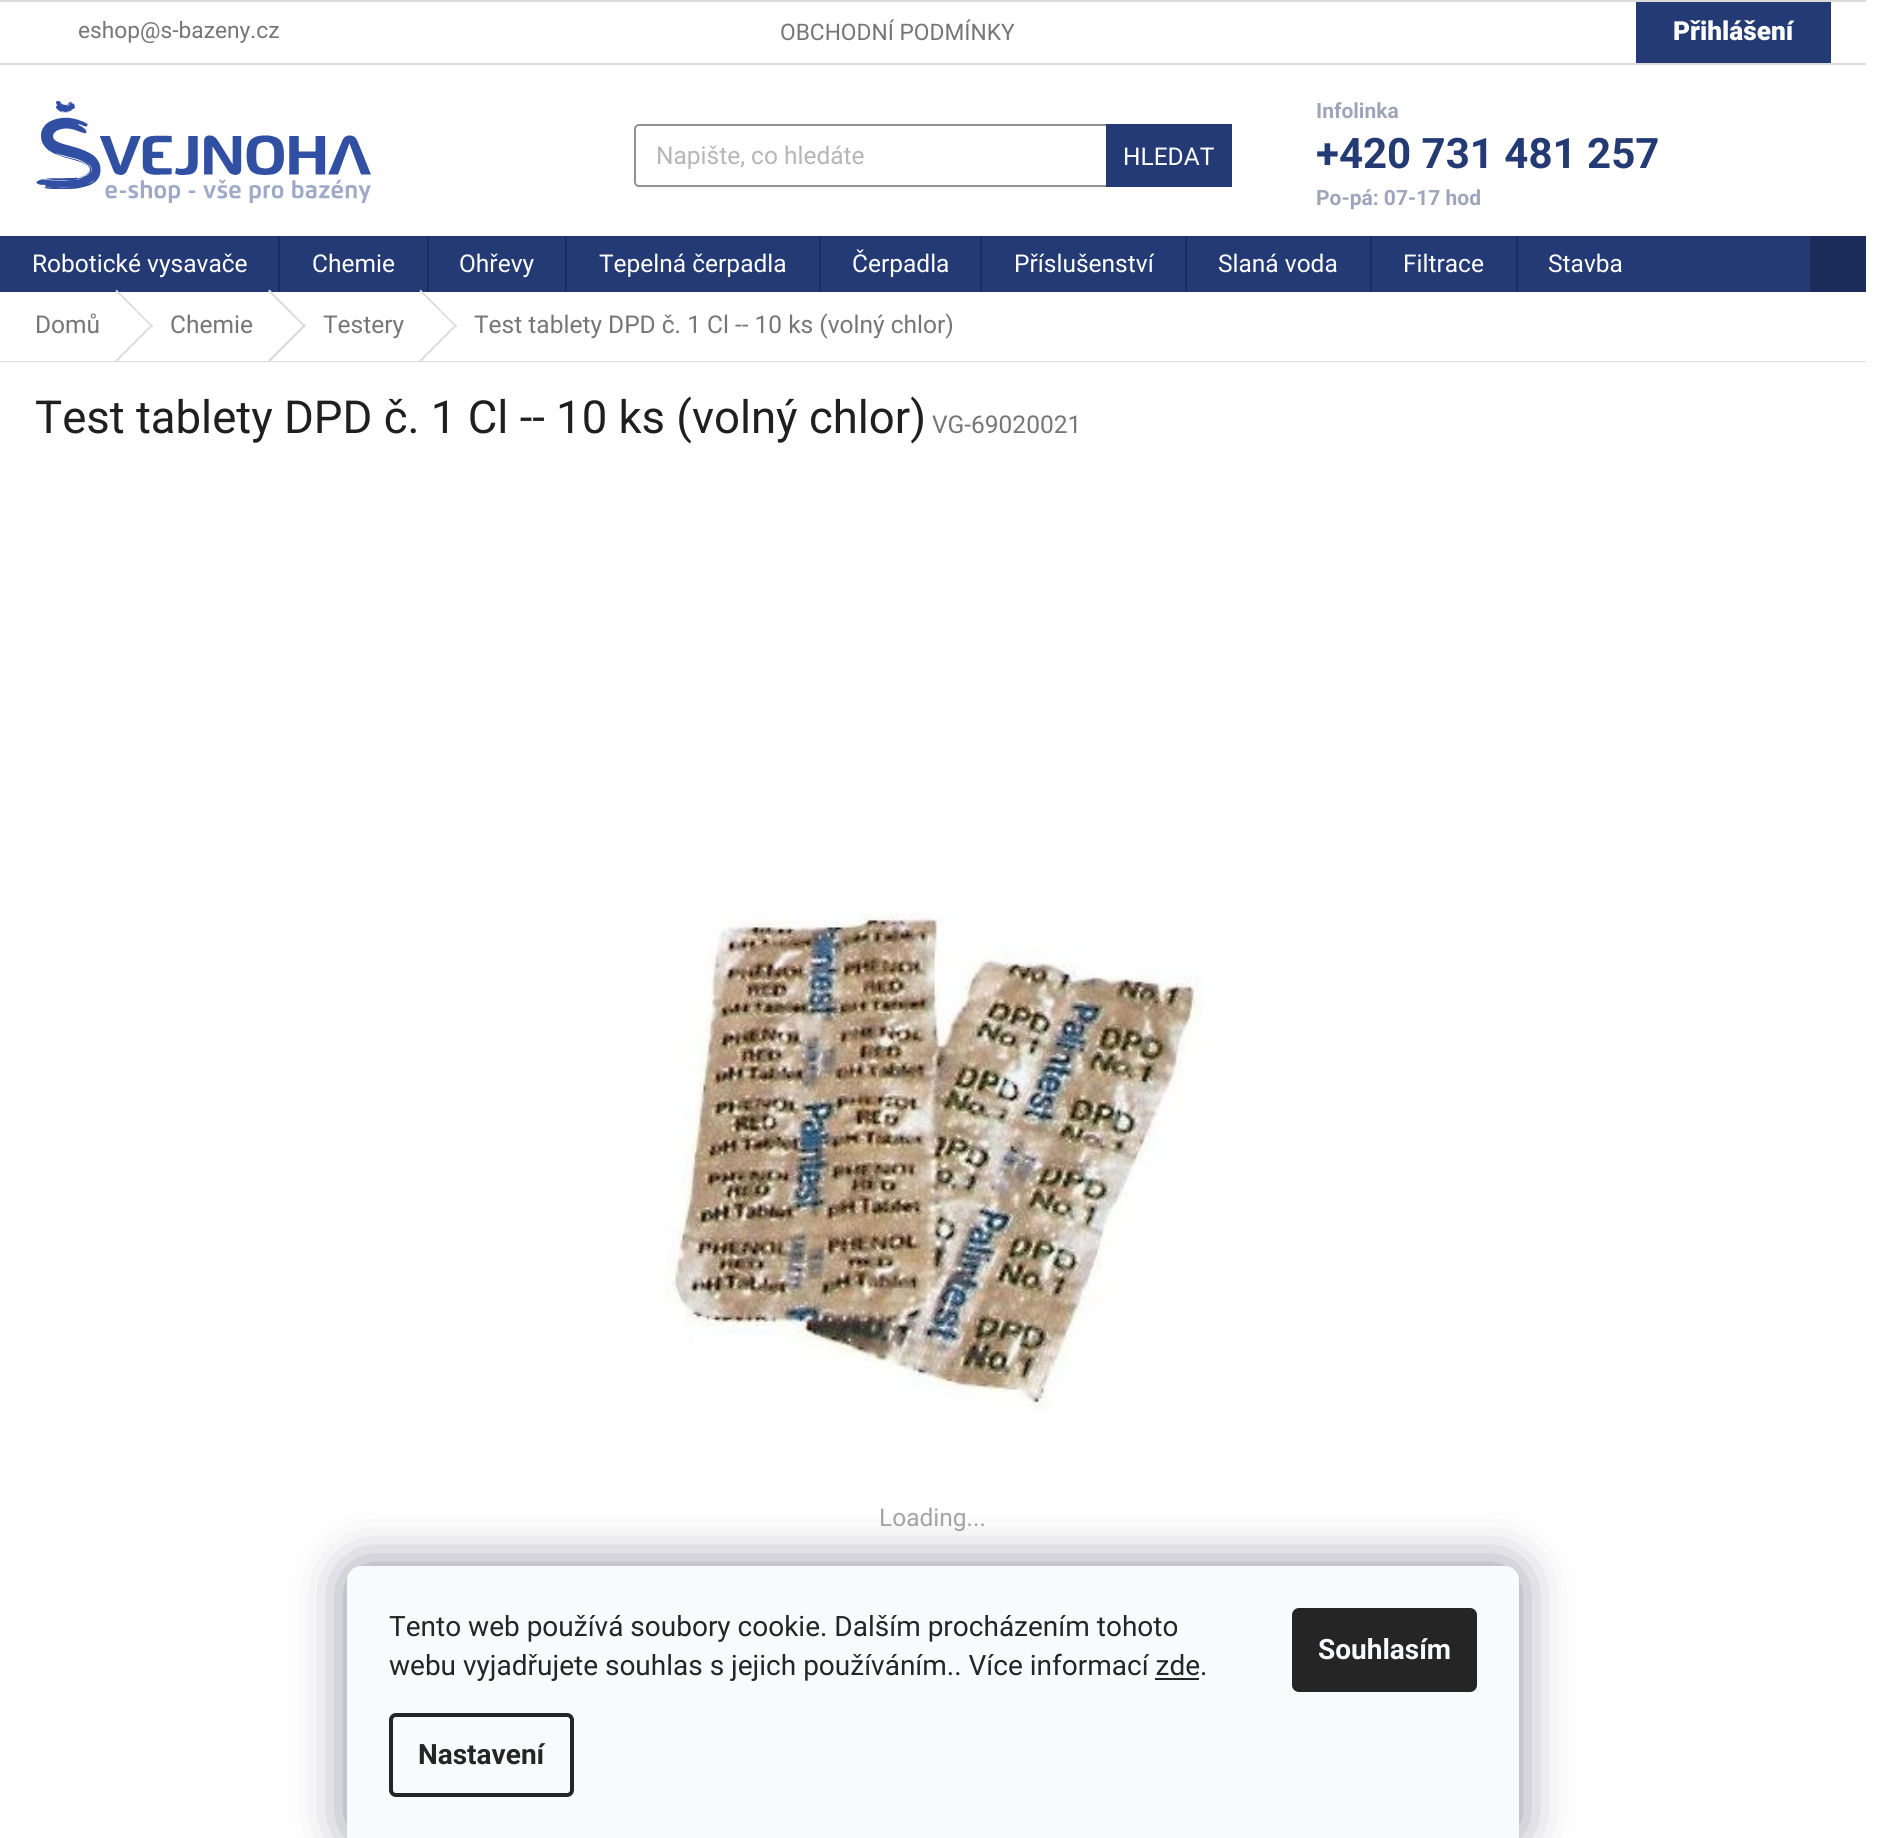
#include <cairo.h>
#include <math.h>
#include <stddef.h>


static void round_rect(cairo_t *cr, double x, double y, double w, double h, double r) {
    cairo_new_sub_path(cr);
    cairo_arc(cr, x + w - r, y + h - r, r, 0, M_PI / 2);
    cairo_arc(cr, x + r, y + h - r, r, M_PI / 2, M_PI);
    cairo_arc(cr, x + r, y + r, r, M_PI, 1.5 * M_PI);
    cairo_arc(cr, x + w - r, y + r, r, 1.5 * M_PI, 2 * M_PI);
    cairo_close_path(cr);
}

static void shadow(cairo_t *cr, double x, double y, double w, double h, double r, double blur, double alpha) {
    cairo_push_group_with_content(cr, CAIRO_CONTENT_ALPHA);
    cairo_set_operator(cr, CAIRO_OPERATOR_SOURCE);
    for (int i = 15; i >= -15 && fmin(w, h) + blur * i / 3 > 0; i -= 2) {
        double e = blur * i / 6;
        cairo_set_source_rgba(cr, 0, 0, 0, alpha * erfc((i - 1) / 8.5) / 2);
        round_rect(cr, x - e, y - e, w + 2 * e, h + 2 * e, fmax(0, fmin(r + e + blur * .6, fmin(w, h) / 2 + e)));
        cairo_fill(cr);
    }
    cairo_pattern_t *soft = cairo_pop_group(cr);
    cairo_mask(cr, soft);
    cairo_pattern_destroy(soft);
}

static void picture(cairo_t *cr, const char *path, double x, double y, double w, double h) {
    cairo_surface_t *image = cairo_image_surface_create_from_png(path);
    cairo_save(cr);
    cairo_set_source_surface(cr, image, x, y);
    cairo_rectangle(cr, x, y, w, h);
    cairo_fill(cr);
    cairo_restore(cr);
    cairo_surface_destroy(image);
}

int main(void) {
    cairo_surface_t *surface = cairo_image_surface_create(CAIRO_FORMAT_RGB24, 1891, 1838);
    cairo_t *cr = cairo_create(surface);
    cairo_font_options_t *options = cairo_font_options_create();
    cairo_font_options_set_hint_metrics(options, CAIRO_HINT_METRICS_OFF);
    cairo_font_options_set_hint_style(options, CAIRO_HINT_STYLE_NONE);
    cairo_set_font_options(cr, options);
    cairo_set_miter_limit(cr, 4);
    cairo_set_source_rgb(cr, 1, 1, 1);
    cairo_paint(cr);
    cairo_set_source_rgb(cr, 0.855, 0.855, 0.855);
    cairo_rectangle(cr, 0, 0, 1866, 2);
    cairo_fill(cr);
    cairo_rectangle(cr, 0, 63, 1866, 2);
    cairo_fill(cr);
    cairo_select_font_face(cr, "Roboto", CAIRO_FONT_SLANT_NORMAL, CAIRO_FONT_WEIGHT_NORMAL);
    cairo_set_font_size(cr, 22.75);
    cairo_set_source_rgb(cr, 0.463, 0.463, 0.463);
    cairo_move_to(cr, 78, 38);
    cairo_show_text(cr, "eshop@s-bazeny.cz");
    cairo_move_to(cr, 780, 40);
    cairo_show_text(cr, "OBCHODNÍ PODMÍNKY");
    cairo_set_source_rgb(cr, 0.141, 0.227, 0.455);
    cairo_rectangle(cr, 1636, 2, 195, 61);
    cairo_fill(cr);
    cairo_select_font_face(cr, "Roboto Black", CAIRO_FONT_SLANT_NORMAL, CAIRO_FONT_WEIGHT_NORMAL);
    cairo_set_font_size(cr, 26.25);
    cairo_set_source_rgb(cr, 1, 1, 1);
    cairo_move_to(cr, 1673, 40);
    cairo_show_text(cr, "Přihlášení");
    picture(cr, "img1.png", 36, 101, 335, 102);
    round_rect(cr, 635, 125, 596, 61, 4);
    cairo_set_source_rgb(cr, 0.569, 0.569, 0.569);
    cairo_stroke(cr);
    cairo_select_font_face(cr, "Roboto", CAIRO_FONT_SLANT_NORMAL, CAIRO_FONT_WEIGHT_NORMAL);
    cairo_set_font_size(cr, 24.5);
    cairo_set_source_rgb(cr, 0.714, 0.714, 0.714);
    cairo_move_to(cr, 656, 164);
    cairo_show_text(cr, "Napište, co hledáte");
    cairo_set_source_rgb(cr, 0.141, 0.227, 0.455);
    cairo_rectangle(cr, 1106, 124, 126, 63);
    cairo_fill(cr);
    cairo_set_source_rgb(cr, 1, 1, 1);
    cairo_move_to(cr, 1123, 165);
    cairo_show_text(cr, "HLEDAT");
    cairo_select_font_face(cr, "Roboto", CAIRO_FONT_SLANT_NORMAL, CAIRO_FONT_WEIGHT_BOLD);
    cairo_set_font_size(cr, 21);
    cairo_set_source_rgb(cr, 0.62, 0.647, 0.733);
    cairo_move_to(cr, 1316, 118);
    cairo_show_text(cr, "Infolinka");
    cairo_set_font_size(cr, 42);
    cairo_set_source_rgb(cr, 0.141, 0.227, 0.455);
    cairo_move_to(cr, 1316, 168);
    cairo_show_text(cr, "+420 731 481 257");
    cairo_set_font_size(cr, 21);
    cairo_set_source_rgb(cr, 0.62, 0.647, 0.733);
    cairo_move_to(cr, 1316, 205);
    cairo_show_text(cr, "Po-pá: 07-17 hod");
    cairo_set_source_rgb(cr, 0.141, 0.227, 0.455);
    cairo_rectangle(cr, 0, 236, 1810, 56);
    cairo_fill(cr);
    cairo_select_font_face(cr, "Roboto", CAIRO_FONT_SLANT_NORMAL, CAIRO_FONT_WEIGHT_NORMAL);
    cairo_set_font_size(cr, 24.5);
    cairo_set_source_rgb(cr, 1, 1, 1);
    cairo_move_to(cr, 32, 272);
    cairo_show_text(cr, "Robotické vysavače");
    cairo_set_source_rgb(cr, 0.11, 0.173, 0.353);
    cairo_rectangle(cr, 278, 236, 2, 56);
    cairo_fill(cr);
    cairo_set_source_rgb(cr, 1, 1, 1);
    cairo_move_to(cr, 312, 272);
    cairo_show_text(cr, "Chemie");
    cairo_set_source_rgb(cr, 0.11, 0.173, 0.353);
    cairo_rectangle(cr, 427, 236, 2, 56);
    cairo_fill(cr);
    cairo_set_source_rgb(cr, 1, 1, 1);
    cairo_move_to(cr, 459, 272);
    cairo_show_text(cr, "Ohřevy");
    cairo_set_source_rgb(cr, 0.11, 0.173, 0.353);
    cairo_rectangle(cr, 565, 236, 2, 56);
    cairo_fill(cr);
    cairo_set_source_rgb(cr, 1, 1, 1);
    cairo_move_to(cr, 599, 272);
    cairo_show_text(cr, "Tepelná čerpadla");
    cairo_set_source_rgb(cr, 0.11, 0.173, 0.353);
    cairo_rectangle(cr, 819, 236, 2, 56);
    cairo_fill(cr);
    cairo_set_source_rgb(cr, 1, 1, 1);
    cairo_move_to(cr, 852, 272);
    cairo_show_text(cr, "Čerpadla");
    cairo_set_source_rgb(cr, 0.11, 0.173, 0.353);
    cairo_rectangle(cr, 980, 236, 2, 56);
    cairo_fill(cr);
    cairo_set_source_rgb(cr, 1, 1, 1);
    cairo_move_to(cr, 1014, 272);
    cairo_show_text(cr, "Příslušenství");
    cairo_set_source_rgb(cr, 0.11, 0.173, 0.353);
    cairo_rectangle(cr, 1185, 236, 2, 56);
    cairo_fill(cr);
    cairo_set_source_rgb(cr, 1, 1, 1);
    cairo_move_to(cr, 1218, 272);
    cairo_show_text(cr, "Slaná voda");
    cairo_set_source_rgb(cr, 0.11, 0.173, 0.353);
    cairo_rectangle(cr, 1370, 236, 2, 56);
    cairo_fill(cr);
    cairo_set_source_rgb(cr, 1, 1, 1);
    cairo_move_to(cr, 1403, 272);
    cairo_show_text(cr, "Filtrace");
    cairo_set_source_rgb(cr, 0.11, 0.173, 0.353);
    cairo_rectangle(cr, 1516, 236, 2, 56);
    cairo_fill(cr);
    cairo_set_source_rgb(cr, 1, 1, 1);
    cairo_move_to(cr, 1548, 272);
    cairo_show_text(cr, "Stavba");
    cairo_set_source_rgb(cr, 0.11, 0.173, 0.353);
    cairo_rectangle(cr, 1810, 236, 56, 56);
    cairo_fill(cr);
    cairo_set_source_rgb(cr, 0.855, 0.855, 0.855);
    cairo_rectangle(cr, 0, 361, 1866, 1);
    cairo_fill(cr);
    cairo_set_source_rgb(cr, 0.463, 0.463, 0.463);
    cairo_move_to(cr, 35, 333);
    cairo_show_text(cr, "Domů");
    cairo_set_source_rgb(cr, 0.855, 0.855, 0.855);
    cairo_new_path(cr);
    cairo_move_to(cr, 115.5, 291);
    cairo_line_to(cr, 116.5, 289.5);
    cairo_line_to(cr, 153, 326.5);
    cairo_line_to(cr, 152, 327.5);
    cairo_close_path(cr);
    cairo_fill(cr);
    cairo_new_path(cr);
    cairo_move_to(cr, 152, 324);
    cairo_line_to(cr, 153, 325.5);
    cairo_line_to(cr, 116.5, 362);
    cairo_line_to(cr, 115.5, 360.5);
    cairo_close_path(cr);
    cairo_fill(cr);
    cairo_set_source_rgb(cr, 0.463, 0.463, 0.463);
    cairo_move_to(cr, 170, 333);
    cairo_show_text(cr, "Chemie");
    cairo_set_source_rgb(cr, 0.855, 0.855, 0.855);
    cairo_new_path(cr);
    cairo_move_to(cr, 268, 291);
    cairo_line_to(cr, 269.5, 289.5);
    cairo_line_to(cr, 306, 326.5);
    cairo_line_to(cr, 304.5, 327.5);
    cairo_close_path(cr);
    cairo_fill(cr);
    cairo_new_path(cr);
    cairo_move_to(cr, 304.5, 324);
    cairo_line_to(cr, 306, 325.5);
    cairo_line_to(cr, 269.5, 362);
    cairo_line_to(cr, 268, 360.5);
    cairo_close_path(cr);
    cairo_fill(cr);
    cairo_set_source_rgb(cr, 0.463, 0.463, 0.463);
    cairo_move_to(cr, 323, 333);
    cairo_show_text(cr, "Testery");
    cairo_set_source_rgb(cr, 0.855, 0.855, 0.855);
    cairo_new_path(cr);
    cairo_move_to(cr, 419.5, 291);
    cairo_line_to(cr, 420.5, 289.5);
    cairo_line_to(cr, 457, 326.5);
    cairo_line_to(cr, 456, 327.5);
    cairo_close_path(cr);
    cairo_fill(cr);
    cairo_new_path(cr);
    cairo_move_to(cr, 456, 324);
    cairo_line_to(cr, 457, 325.5);
    cairo_line_to(cr, 420.5, 362);
    cairo_line_to(cr, 419.5, 360.5);
    cairo_close_path(cr);
    cairo_fill(cr);
    cairo_set_source_rgb(cr, 0.463, 0.463, 0.463);
    cairo_move_to(cr, 474, 333);
    cairo_show_text(cr, "Test tablety DPD č. 1 Cl -- 10 ks (volný chlor)");
    cairo_set_font_size(cr, 45.5);
    cairo_set_source_rgb(cr, 0.122, 0.122, 0.122);
    cairo_move_to(cr, 35, 433);
    cairo_show_text(cr, "Test tablety DPD č. 1 Cl -- 10 ks (volný chlor)");
    cairo_set_font_size(cr, 24.5);
    cairo_set_source_rgb(cr, 0.463, 0.463, 0.463);
    cairo_move_to(cr, 932, 433);
    cairo_show_text(cr, "VG-69020021");
    picture(cr, "img2.png", 665, 913, 539, 498);
    cairo_set_source_rgb(cr, 0.651, 0.651, 0.651);
    cairo_move_to(cr, 879, 1526);
    cairo_show_text(cr, "Loading...");
    cairo_set_source_rgb(cr, 0.106, 0.098, 0.224);
    shadow(cr, 347, 1566, 1172, 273, 14, 26, 0.5);
    cairo_set_source_rgb(cr, 0.973, 0.98, 0.984);
    cairo_new_path(cr);
    cairo_move_to(cr, 361, 1566);
    cairo_line_to(cr, 1505, 1566);
    cairo_curve_to(cr, 1512.5, 1566, 1519, 1572.5, 1519, 1580);
    cairo_line_to(cr, 1519, 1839);
    cairo_line_to(cr, 347, 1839);
    cairo_line_to(cr, 347, 1580);
    cairo_curve_to(cr, 347, 1572.5, 353.5, 1566, 361, 1566);
    cairo_close_path(cr);
    cairo_fill(cr);
    cairo_set_font_size(cr, 28);
    cairo_set_source_rgb(cr, 0.145, 0.145, 0.145);
    cairo_move_to(cr, 389, 1636);
    cairo_show_text(cr, "Tento web používá soubory cookie. Dalším procházením tohoto");
    cairo_move_to(cr, 389, 1675);
    cairo_show_text(cr, "webu vyjadřujete souhlas s jejich používáním.. Více informací zde.");
    cairo_rectangle(cr, 1155, 1678, 44, 2);
    cairo_fill(cr);
    round_rect(cr, 391, 1715, 181, 80, 5);
    cairo_set_line_width(cr, 4);
    cairo_stroke(cr);
    cairo_select_font_face(cr, "Roboto", CAIRO_FONT_SLANT_NORMAL, CAIRO_FONT_WEIGHT_BOLD);
    cairo_move_to(cr, 418, 1764);
    cairo_show_text(cr, "Nastavení");
    round_rect(cr, 1292, 1608, 185, 84, 7);
    cairo_fill(cr);
    cairo_set_source_rgb(cr, 0.973, 0.98, 0.984);
    cairo_move_to(cr, 1318, 1659);
    cairo_show_text(cr, "Souhlasím");
    cairo_surface_write_to_png(surface, "page.png");
    cairo_font_options_destroy(options);
    cairo_destroy(cr);
    cairo_surface_destroy(surface);
    return 0;
}
